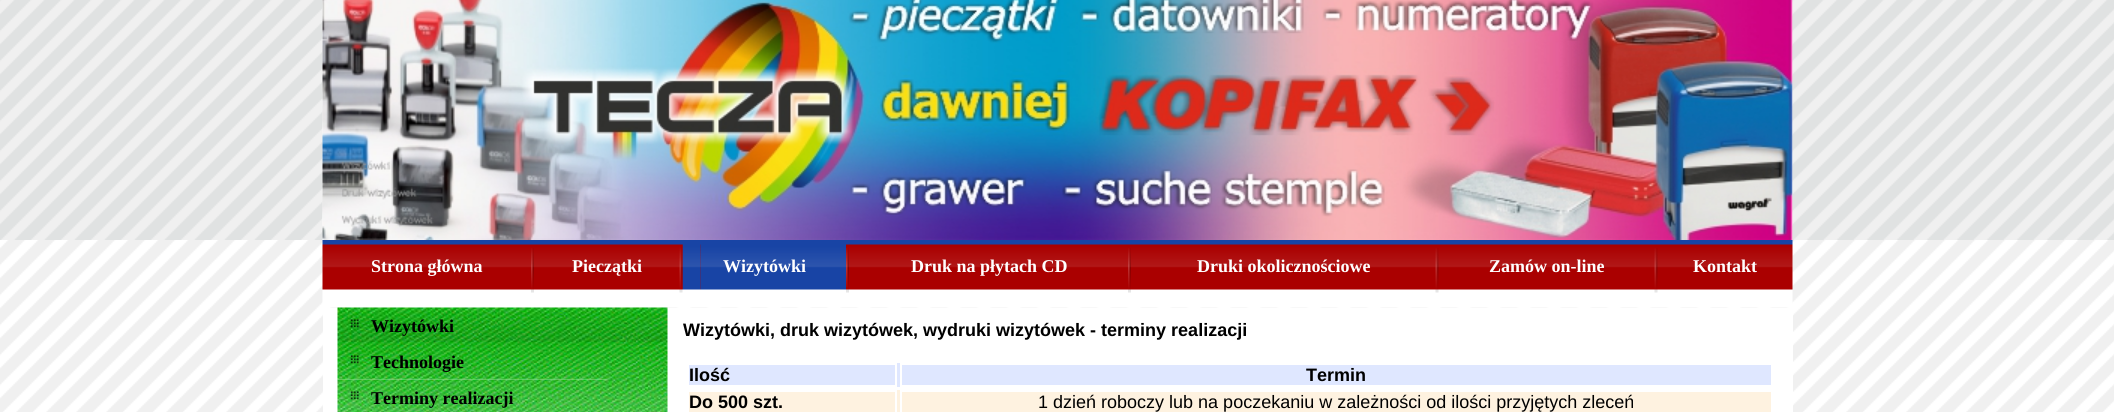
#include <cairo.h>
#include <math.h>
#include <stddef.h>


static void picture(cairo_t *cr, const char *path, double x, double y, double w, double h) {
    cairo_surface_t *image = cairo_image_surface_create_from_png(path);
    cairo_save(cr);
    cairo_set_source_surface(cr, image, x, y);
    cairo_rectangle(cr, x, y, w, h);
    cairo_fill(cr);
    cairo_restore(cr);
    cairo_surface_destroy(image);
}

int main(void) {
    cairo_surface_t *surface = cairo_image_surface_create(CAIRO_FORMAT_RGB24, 2114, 412);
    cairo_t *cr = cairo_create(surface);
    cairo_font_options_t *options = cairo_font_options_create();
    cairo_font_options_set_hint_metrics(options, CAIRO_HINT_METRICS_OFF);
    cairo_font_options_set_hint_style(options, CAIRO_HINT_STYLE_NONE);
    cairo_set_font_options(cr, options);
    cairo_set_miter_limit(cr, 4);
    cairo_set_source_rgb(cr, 1, 1, 1);
    cairo_paint(cr);
    picture(cr, "img1.png", 0, 0, 2114, 412);
    picture(cr, "img2.png", 0, 0, 323, 240);
    picture(cr, "img3.png", 322, 0, 1471, 240);
    picture(cr, "img4.png", 341, 160, 50, 13);
    picture(cr, "img5.png", 342, 187, 75, 13);
    picture(cr, "img6.png", 341, 214, 93, 13);
    picture(cr, "img7.png", 1792, 0, 322, 240);
    picture(cr, "img8.png", 322, 240, 1471, 68);
    cairo_select_font_face(cr, "Liberation Serif", CAIRO_FONT_SLANT_NORMAL, CAIRO_FONT_WEIGHT_BOLD);
    cairo_set_font_size(cr, 18);
    cairo_set_source_rgb(cr, 1, 1, 1);
    cairo_move_to(cr, 371, 272);
    cairo_show_text(cr, "Strona główna");
    picture(cr, "img9.png", 531, 248, 3, 45);
    cairo_move_to(cr, 572, 272);
    cairo_show_text(cr, "Pieczątki");
    picture(cr, "img11.png", 682, 244, 19, 46);
    picture(cr, "img10.png", 679, 244, 4, 49);
    picture(cr, "img12.png", 700, 244, 128, 46);
    cairo_move_to(cr, 723, 272);
    cairo_show_text(cr, "Wizytówki");
    picture(cr, "img13.png", 828, 244, 18, 46);
    picture(cr, "img14.png", 846, 248, 3, 45);
    cairo_move_to(cr, 911, 272);
    cairo_show_text(cr, "Druk na płytach CD");
    picture(cr, "img9.png", 1128, 248, 3, 45);
    cairo_move_to(cr, 1197, 272);
    cairo_show_text(cr, "Druki okolicznościowe");
    picture(cr, "img15.png", 1435, 248, 4, 45);
    cairo_move_to(cr, 1489, 272);
    cairo_show_text(cr, "Zamów on-line");
    picture(cr, "img15.png", 1654, 248, 4, 45);
    cairo_move_to(cr, 1693, 272);
    cairo_show_text(cr, "Kontakt");
    cairo_rectangle(cr, 323, 308, 15, 104);
    cairo_fill(cr);
    cairo_rectangle(cr, 667, 308, 1126, 104);
    cairo_fill(cr);
    picture(cr, "img16.png", 337, 307, 331, 105);
    picture(cr, "img17.png", 350, 319, 9, 9);
    cairo_set_source_rgb(cr, 0, 0, 0);
    cairo_move_to(cr, 371, 332);
    cairo_show_text(cr, "Wizytówki");
    picture(cr, "img18.png", 350, 355, 9, 9);
    cairo_move_to(cr, 371, 368);
    cairo_show_text(cr, "Technologie");
    picture(cr, "img19.png", 337, 378, 271, 2);
    picture(cr, "img20.png", 350, 391, 9, 9);
    cairo_move_to(cr, 371, 404);
    cairo_show_text(cr, "Terminy realizacji");
    cairo_select_font_face(cr, "Liberation Sans", CAIRO_FONT_SLANT_NORMAL, CAIRO_FONT_WEIGHT_BOLD);
    cairo_move_to(cr, 683, 336);
    cairo_show_text(cr, "Wizytówki, druk wizytówek, wydruki wizytówek - terminy realizacji");
    cairo_set_source_rgb(cr, 0.875, 0.906, 1);
    cairo_rectangle(cr, 689, 363, 1082, 24);
    cairo_fill(cr);
    cairo_rectangle(cr, 688, 364, 208, 22);
    cairo_set_source_rgb(cr, 1, 1, 1);
    cairo_stroke(cr);
    cairo_set_source_rgb(cr, 0, 0, 0);
    cairo_move_to(cr, 689, 381);
    cairo_show_text(cr, "Ilość");
    cairo_rectangle(cr, 901, 364, 871, 22);
    cairo_set_source_rgb(cr, 1, 1, 1);
    cairo_stroke(cr);
    cairo_set_source_rgb(cr, 0, 0, 0);
    cairo_move_to(cr, 1306, 381);
    cairo_show_text(cr, "Termin");
    cairo_set_source_rgb(cr, 0.996, 0.949, 0.878);
    cairo_rectangle(cr, 689, 390, 1082, 22);
    cairo_fill(cr);
    cairo_rectangle(cr, 688, 391, 208, 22);
    cairo_set_source_rgb(cr, 1, 1, 1);
    cairo_stroke(cr);
    cairo_set_source_rgb(cr, 0, 0, 0);
    cairo_move_to(cr, 689, 408);
    cairo_show_text(cr, "Do 500 szt.");
    cairo_rectangle(cr, 901, 391, 871, 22);
    cairo_set_source_rgb(cr, 1, 1, 1);
    cairo_stroke(cr);
    cairo_select_font_face(cr, "Liberation Sans", CAIRO_FONT_SLANT_NORMAL, CAIRO_FONT_WEIGHT_NORMAL);
    cairo_set_source_rgb(cr, 0, 0, 0);
    cairo_move_to(cr, 1038, 408);
    cairo_show_text(cr, "1 dzień roboczy lub na poczekaniu w zależności od ilości przyjętych zleceń");
    cairo_surface_write_to_png(surface, "page.png");
    cairo_font_options_destroy(options);
    cairo_destroy(cr);
    cairo_surface_destroy(surface);
    return 0;
}
